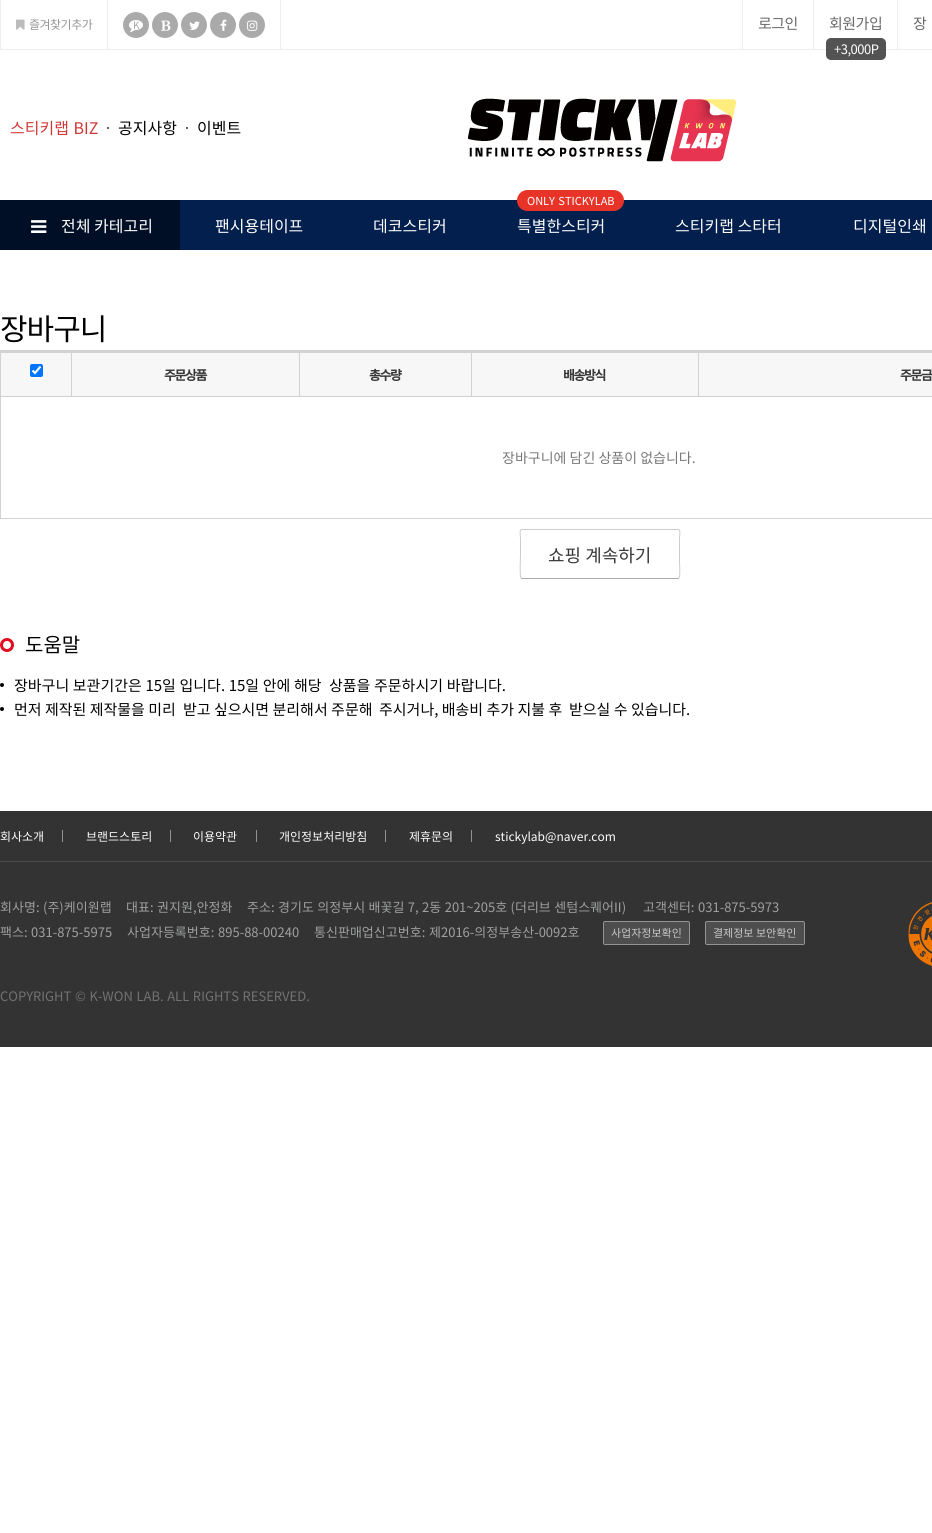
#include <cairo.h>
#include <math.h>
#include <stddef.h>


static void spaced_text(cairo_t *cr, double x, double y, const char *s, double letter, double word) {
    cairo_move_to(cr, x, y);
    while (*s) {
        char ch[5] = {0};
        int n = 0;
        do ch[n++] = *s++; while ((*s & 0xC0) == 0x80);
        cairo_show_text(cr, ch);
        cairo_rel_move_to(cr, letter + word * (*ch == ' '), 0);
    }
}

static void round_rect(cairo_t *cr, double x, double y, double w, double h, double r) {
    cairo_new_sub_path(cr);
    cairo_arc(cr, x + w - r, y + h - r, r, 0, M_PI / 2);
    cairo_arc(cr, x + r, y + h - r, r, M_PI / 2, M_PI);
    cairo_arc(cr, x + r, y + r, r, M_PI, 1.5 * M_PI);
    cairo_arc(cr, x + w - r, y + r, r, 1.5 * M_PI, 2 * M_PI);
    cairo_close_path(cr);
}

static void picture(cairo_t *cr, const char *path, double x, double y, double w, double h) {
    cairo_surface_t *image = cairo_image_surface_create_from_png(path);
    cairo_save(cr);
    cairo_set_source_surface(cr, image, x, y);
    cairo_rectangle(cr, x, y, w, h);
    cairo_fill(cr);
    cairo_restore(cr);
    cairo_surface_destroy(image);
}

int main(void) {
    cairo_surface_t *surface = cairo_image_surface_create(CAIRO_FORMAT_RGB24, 932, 1533);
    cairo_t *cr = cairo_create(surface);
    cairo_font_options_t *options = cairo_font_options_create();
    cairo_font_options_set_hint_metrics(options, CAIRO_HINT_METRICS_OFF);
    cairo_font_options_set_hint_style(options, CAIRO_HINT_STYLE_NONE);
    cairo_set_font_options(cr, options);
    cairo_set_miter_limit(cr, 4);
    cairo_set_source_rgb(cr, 1, 1, 1);
    cairo_paint(cr);
    cairo_set_source_rgb(cr, 0.925, 0.929, 0.933);
    cairo_rectangle(cr, 0, 49, 932, 1);
    cairo_fill(cr);
    cairo_rectangle(cr, 107, 0, 1, 49);
    cairo_fill(cr);
    cairo_rectangle(cr, 0, 0, 1, 49);
    cairo_fill(cr);
    picture(cr, "img1.png", 16, 19, 9, 11);
    cairo_select_font_face(cr, "Noto Sans KR", CAIRO_FONT_SLANT_NORMAL, CAIRO_FONT_WEIGHT_NORMAL);
    cairo_set_font_size(cr, 12);
    cairo_set_source_rgb(cr, 0.584, 0.584, 0.584);
    spaced_text(cr, 29, 29, "즐겨찾기추가", -0.5, 0);
    cairo_set_source_rgb(cr, 0.925, 0.929, 0.933);
    cairo_rectangle(cr, 280, 0, 1, 49);
    cairo_fill(cr);
    cairo_set_source_rgb(cr, 0.667, 0.667, 0.667);
    cairo_arc(cr, 136, 25, 13, 0, 2 * M_PI);
    cairo_fill(cr);
    picture(cr, "img2.png", 129, 20, 14, 12);
    cairo_set_font_size(cr, 10);
    spaced_text(cr, 133, 29, "K", -0.5, 0);
    cairo_new_path(cr);
    cairo_arc(cr, 165, 25, 13, 0, 2 * M_PI);
    cairo_fill(cr);
    picture(cr, "img3.png", 161, 20, 10, 11);
    cairo_arc(cr, 194, 25, 13, 0, 2 * M_PI);
    cairo_fill(cr);
    picture(cr, "img4.png", 189, 21, 11, 9);
    cairo_arc(cr, 223, 25, 13, 0, 2 * M_PI);
    cairo_fill(cr);
    picture(cr, "img5.png", 220, 19, 7, 12);
    cairo_arc(cr, 252, 25, 13, 0, 2 * M_PI);
    cairo_fill(cr);
    picture(cr, "img6.png", 247, 20, 11, 11);
    cairo_set_source_rgb(cr, 0.925, 0.929, 0.933);
    cairo_rectangle(cr, 813, 0, 1, 49);
    cairo_fill(cr);
    cairo_rectangle(cr, 742, 0, 1, 49);
    cairo_fill(cr);
    cairo_set_font_size(cr, 15);
    cairo_set_source_rgb(cr, 0.408, 0.408, 0.408);
    spaced_text(cr, 758, 29, "로그인", -0.5, 0);
    cairo_set_source_rgb(cr, 0.925, 0.929, 0.933);
    cairo_rectangle(cr, 897, 0, 1, 49);
    cairo_fill(cr);
    cairo_set_source_rgb(cr, 0.408, 0.408, 0.408);
    spaced_text(cr, 829, 29, "회원가입", -0.5, 0);
    cairo_set_source_rgb(cr, 0.325, 0.325, 0.325);
    round_rect(cr, 826, 38, 60, 22, 5);
    cairo_fill(cr);
    cairo_set_font_size(cr, 13);
    cairo_set_source_rgb(cr, 1, 1, 1);
    spaced_text(cr, 834, 54, "+3,000P", -0.5, 0);
    cairo_set_font_size(cr, 15);
    cairo_set_source_rgb(cr, 0.408, 0.408, 0.408);
    spaced_text(cr, 913, 29, "장", -0.5, 0);
    cairo_set_font_size(cr, 16);
    cairo_set_source_rgb(cr, 0.812, 0.216, 0.212);
    spaced_text(cr, 10, 134, "스티키랩 BIZ", 0, 1);
    cairo_set_source_rgb(cr, 0.2, 0.2, 0.2);
    cairo_new_path(cr);
    cairo_arc(cr, 108, 128, 1, 0, 2 * M_PI);
    cairo_fill(cr);
    cairo_set_source_rgb(cr, 0, 0, 0);
    cairo_move_to(cr, 118, 134);
    cairo_show_text(cr, "공지사항");
    cairo_set_source_rgb(cr, 0.2, 0.2, 0.2);
    cairo_new_path(cr);
    cairo_arc(cr, 187, 128, 1, 0, 2 * M_PI);
    cairo_fill(cr);
    cairo_set_source_rgb(cr, 0, 0, 0);
    cairo_move_to(cr, 197, 134);
    cairo_show_text(cr, "이벤트");
    picture(cr, "img7.png", 468, 98, 268, 64);
    cairo_set_source_rgb(cr, 0.012, 0.122, 0.302);
    cairo_rectangle(cr, 180, 200, 752, 50);
    cairo_fill(cr);
    cairo_set_source_rgb(cr, 0.004, 0.059, 0.149);
    cairo_rectangle(cr, 0, 200, 180, 50);
    cairo_fill(cr);
    picture(cr, "img8.png", 31, 220, 16, 13);
    cairo_set_source_rgb(cr, 1, 1, 1);
    cairo_move_to(cr, 61, 232);
    cairo_show_text(cr, "전체 카테고리");
    cairo_move_to(cr, 215, 232);
    cairo_show_text(cr, "팬시용테이프");
    cairo_move_to(cr, 373, 232);
    cairo_show_text(cr, "데코스티커");
    cairo_set_source_rgb(cr, 0.91, 0.204, 0.157);
    round_rect(cr, 517, 190, 107, 21, 10.5);
    cairo_fill(cr);
    cairo_set_font_size(cr, 11);
    cairo_set_source_rgb(cr, 1, 1, 1);
    spaced_text(cr, 527, 205, "ONLY STICKYLAB", 0, 1);
    cairo_set_font_size(cr, 16);
    cairo_move_to(cr, 517, 232);
    cairo_show_text(cr, "특별한스티커");
    cairo_move_to(cr, 675, 232);
    cairo_show_text(cr, "스티키랩 스타터");
    cairo_move_to(cr, 853, 232);
    cairo_show_text(cr, "디지털인쇄");
    cairo_set_font_size(cr, 30);
    cairo_set_source_rgb(cr, 0, 0, 0);
    spaced_text(cr, 0, 340, "장바구니", -1, 0);
    cairo_set_source_rgb(cr, 0.827, 0.827, 0.827);
    cairo_rectangle(cr, 0, 518, 932, 1);
    cairo_fill(cr);
    cairo_set_source_rgb(cr, 0.824, 0.824, 0.824);
    cairo_rectangle(cr, 698, 396, 234, 1);
    cairo_fill(cr);
    cairo_rectangle(cr, 698, 351, 1, 46);
    cairo_fill(cr);
    cairo_rectangle(cr, 471, 396, 228, 1);
    cairo_fill(cr);
    cairo_rectangle(cr, 471, 351, 1, 46);
    cairo_fill(cr);
    cairo_rectangle(cr, 299, 396, 173, 1);
    cairo_fill(cr);
    cairo_rectangle(cr, 299, 351, 1, 46);
    cairo_fill(cr);
    cairo_rectangle(cr, 71, 396, 229, 1);
    cairo_fill(cr);
    cairo_rectangle(cr, 71, 351, 1, 46);
    cairo_fill(cr);
    cairo_rectangle(cr, 0, 396, 1, 123);
    cairo_fill(cr);
    cairo_rectangle(cr, 0, 396, 72, 1);
    cairo_fill(cr);
    cairo_rectangle(cr, 0, 351, 1, 46);
    cairo_fill(cr);
    cairo_rectangle(cr, 0, 350, 932, 3);
    cairo_fill(cr);
    cairo_set_source_rgb(cr, 0.965, 0.965, 0.965);
    cairo_rectangle(cr, 1, 353, 70, 43);
    cairo_fill(cr);
    cairo_set_source_rgb(cr, 0, 0.459, 1);
    round_rect(cr, 30, 364, 13, 13, 2);
    cairo_fill(cr);
    cairo_new_path(cr);
    cairo_move_to(cr, 32.5, 370.5);
    cairo_line_to(cr, 35, 373);
    cairo_line_to(cr, 40.5, 366.5);
    cairo_set_source_rgb(cr, 1, 1, 1);
    cairo_set_line_width(cr, 2.1);
    cairo_stroke(cr);
    cairo_set_source_rgb(cr, 0.965, 0.965, 0.965);
    cairo_rectangle(cr, 72, 353, 227, 43);
    cairo_fill(cr);
    cairo_select_font_face(cr, "Noto Sans KR", CAIRO_FONT_SLANT_NORMAL, CAIRO_FONT_WEIGHT_BOLD);
    cairo_set_font_size(cr, 13);
    cairo_set_source_rgb(cr, 0.22, 0.22, 0.22);
    spaced_text(cr, 164, 380, "주문상품", -1.5, 0);
    cairo_set_source_rgb(cr, 0.965, 0.965, 0.965);
    cairo_rectangle(cr, 300, 353, 171, 43);
    cairo_fill(cr);
    cairo_set_source_rgb(cr, 0.22, 0.22, 0.22);
    spaced_text(cr, 369, 380, "총수량", -1.5, 0);
    cairo_set_source_rgb(cr, 0.965, 0.965, 0.965);
    cairo_rectangle(cr, 472, 353, 226, 43);
    cairo_fill(cr);
    cairo_set_source_rgb(cr, 0.22, 0.22, 0.22);
    spaced_text(cr, 563, 380, "배송방식", -1.5, 0);
    cairo_set_source_rgb(cr, 0.965, 0.965, 0.965);
    cairo_rectangle(cr, 699, 353, 233, 43);
    cairo_fill(cr);
    cairo_set_source_rgb(cr, 0.22, 0.22, 0.22);
    spaced_text(cr, 900, 380, "주문금", -1.5, 0);
    cairo_select_font_face(cr, "Noto Sans KR", CAIRO_FONT_SLANT_NORMAL, CAIRO_FONT_WEIGHT_NORMAL);
    cairo_set_font_size(cr, 14);
    cairo_set_source_rgb(cr, 0.467, 0.467, 0.467);
    cairo_move_to(cr, 502, 463);
    cairo_show_text(cr, "장바구니에 담긴 상품이 없습니다.");
    cairo_new_path(cr);
    cairo_move_to(cr, 679, 578);
    cairo_line_to(cr, 678, 578.5);
    cairo_line_to(cr, 522, 578.5);
    cairo_line_to(cr, 521, 578);
    cairo_set_source_rgb(cr, 0.667, 0.667, 0.667);
    cairo_set_line_width(cr, 1);
    cairo_stroke(cr);
    cairo_new_path(cr);
    cairo_move_to(cr, 521, 578);
    cairo_curve_to(cr, 519.5, 577, 520.5, 557, 520.5, 554);
    cairo_line_to(cr, 520.5, 538.5);
    cairo_curve_to(cr, 520.5, 535.5, 519, 529.5, 522, 529.5);
    cairo_line_to(cr, 678, 529.5);
    cairo_curve_to(cr, 681, 529.5, 679.5, 535.5, 679.5, 538.5);
    cairo_line_to(cr, 679.5, 561.5);
    cairo_curve_to(cr, 679.5, 563.5, 680.5, 576.5, 679, 578);
    cairo_set_source_rgb(cr, 0.8, 0.8, 0.8);
    cairo_stroke(cr);
    cairo_set_font_size(cr, 18);
    cairo_set_source_rgb(cr, 0.22, 0.22, 0.22);
    cairo_move_to(cr, 548, 562);
    cairo_show_text(cr, "쇼핑 계속하기");
    cairo_new_path(cr);
    cairo_arc(cr, 7, 645, 5.5, 0, 2 * M_PI);
    cairo_set_source_rgb(cr, 0.882, 0.055, 0.129);
    cairo_set_line_width(cr, 3);
    cairo_stroke(cr);
    cairo_set_font_size(cr, 20);
    cairo_set_source_rgb(cr, 0, 0, 0);
    cairo_move_to(cr, 25, 652);
    cairo_show_text(cr, "도움말");
    cairo_new_path(cr);
    cairo_arc(cr, 2, 685, 2, 0, 2 * M_PI);
    cairo_fill(cr);
    cairo_set_font_size(cr, 15);
    spaced_text(cr, 14, 691, "장바구니 보관기간은 15일 입니다. 15일 안에 해당", 0, 0.25);
    spaced_text(cr, 329, 691, "상품을 주문하시기 바랍니다.", 0, 0.25);
    cairo_new_path(cr);
    cairo_arc(cr, 2, 709, 2, 0, 2 * M_PI);
    cairo_fill(cr);
    cairo_move_to(cr, 14, 715);
    cairo_show_text(cr, "먼저 제작된 제작물을 미리");
    cairo_move_to(cr, 183, 715);
    cairo_show_text(cr, "받고 싶으시면 분리해서 주문해");
    cairo_move_to(cr, 379, 715);
    cairo_show_text(cr, "주시거나, 배송비 추가 지불 후");
    cairo_move_to(cr, 569, 715);
    cairo_show_text(cr, "받으실 수 있습니다.");
    cairo_set_source_rgb(cr, 0.2, 0.2, 0.2);
    cairo_rectangle(cr, 0, 811, 932, 236);
    cairo_fill(cr);
    cairo_set_font_size(cr, 12);
    cairo_set_source_rgb(cr, 1, 1, 1);
    cairo_move_to(cr, 0, 841);
    cairo_show_text(cr, "회사소개");
    cairo_set_source_rgb(cr, 0.569, 0.569, 0.569);
    cairo_rectangle(cr, 62, 830, 1, 12);
    cairo_fill(cr);
    cairo_set_source_rgb(cr, 1, 1, 1);
    cairo_move_to(cr, 86, 841);
    cairo_show_text(cr, "브랜드스토리");
    cairo_set_source_rgb(cr, 0.569, 0.569, 0.569);
    cairo_rectangle(cr, 170, 830, 1, 12);
    cairo_fill(cr);
    cairo_set_source_rgb(cr, 1, 1, 1);
    cairo_move_to(cr, 193, 841);
    cairo_show_text(cr, "이용약관");
    cairo_set_source_rgb(cr, 0.569, 0.569, 0.569);
    cairo_rectangle(cr, 256, 830, 1, 12);
    cairo_fill(cr);
    cairo_set_source_rgb(cr, 1, 1, 1);
    cairo_move_to(cr, 279, 841);
    cairo_show_text(cr, "개인정보처리방침");
    cairo_set_source_rgb(cr, 0.569, 0.569, 0.569);
    cairo_rectangle(cr, 385, 830, 1, 12);
    cairo_fill(cr);
    cairo_set_source_rgb(cr, 1, 1, 1);
    cairo_move_to(cr, 409, 841);
    cairo_show_text(cr, "제휴문의");
    cairo_set_source_rgb(cr, 0.569, 0.569, 0.569);
    cairo_rectangle(cr, 471, 830, 1, 12);
    cairo_fill(cr);
    cairo_set_source_rgb(cr, 1, 1, 1);
    cairo_move_to(cr, 495, 841);
    cairo_show_text(cr, "stickylab@naver.com");
    cairo_set_source_rgb(cr, 0.294, 0.294, 0.294);
    cairo_rectangle(cr, 0, 861, 932, 1);
    cairo_fill(cr);
    cairo_set_font_size(cr, 13);
    cairo_set_source_rgb(cr, 0.624, 0.627, 0.627);
    cairo_move_to(cr, 0, 912);
    cairo_show_text(cr, "회사명:");
    cairo_move_to(cr, 43, 912);
    cairo_show_text(cr, "(주)케이원랩");
    cairo_move_to(cr, 126, 912);
    cairo_show_text(cr, "대표:");
    cairo_move_to(cr, 157, 912);
    cairo_show_text(cr, "권지원,안정화");
    cairo_move_to(cr, 247, 912);
    cairo_show_text(cr, "주소:");
    spaced_text(cr, 278, 912, "경기도 의정부시 배꽃길 7, 2동 201~205호 (더리브 센텀스퀘어II)", 0, 0.5);
    cairo_move_to(cr, 643, 912);
    cairo_show_text(cr, "고객센터:");
    cairo_move_to(cr, 698, 912);
    cairo_show_text(cr, "031-875-5973");
    cairo_move_to(cr, 0, 937);
    cairo_show_text(cr, "팩스:");
    cairo_move_to(cr, 31, 937);
    cairo_show_text(cr, "031-875-5975");
    cairo_move_to(cr, 127, 937);
    cairo_show_text(cr, "사업자등록번호:");
    cairo_move_to(cr, 218, 937);
    cairo_show_text(cr, "895-88-00240");
    cairo_move_to(cr, 314, 937);
    cairo_show_text(cr, "통신판매업신고번호:");
    cairo_move_to(cr, 429, 937);
    cairo_show_text(cr, "제2016-의정부송산-0092호");
    cairo_set_source_rgb(cr, 0.306, 0.306, 0.306);
    round_rect(cr, 603.5, 921.5, 86, 23, 1.5);
    cairo_fill_preserve(cr);
    cairo_set_source_rgb(cr, 0.58, 0.58, 0.584);
    cairo_set_line_width(cr, 1);
    cairo_stroke(cr);
    cairo_set_font_size(cr, 11);
    cairo_set_source_rgb(cr, 0.788, 0.788, 0.788);
    cairo_move_to(cr, 611, 937);
    cairo_show_text(cr, "사업자정보확인");
    cairo_set_source_rgb(cr, 0.306, 0.306, 0.306);
    round_rect(cr, 705.5, 921.5, 99, 23, 1.5);
    cairo_fill_preserve(cr);
    cairo_set_source_rgb(cr, 0.58, 0.58, 0.584);
    cairo_stroke(cr);
    cairo_set_source_rgb(cr, 0.788, 0.788, 0.788);
    cairo_move_to(cr, 713, 937);
    cairo_show_text(cr, "결제정보 보안확인");
    cairo_set_font_size(cr, 13);
    cairo_set_source_rgb(cr, 0.447, 0.443, 0.443);
    spaced_text(cr, 0, 1001, "COPYRIGHT © K-WON LAB. ALL RIGHTS RESERVED.", 0, 0.75);
    picture(cr, "img9.png", 908, 902, 24, 64);
    cairo_surface_write_to_png(surface, "page.png");
    cairo_font_options_destroy(options);
    cairo_destroy(cr);
    cairo_surface_destroy(surface);
    return 0;
}
